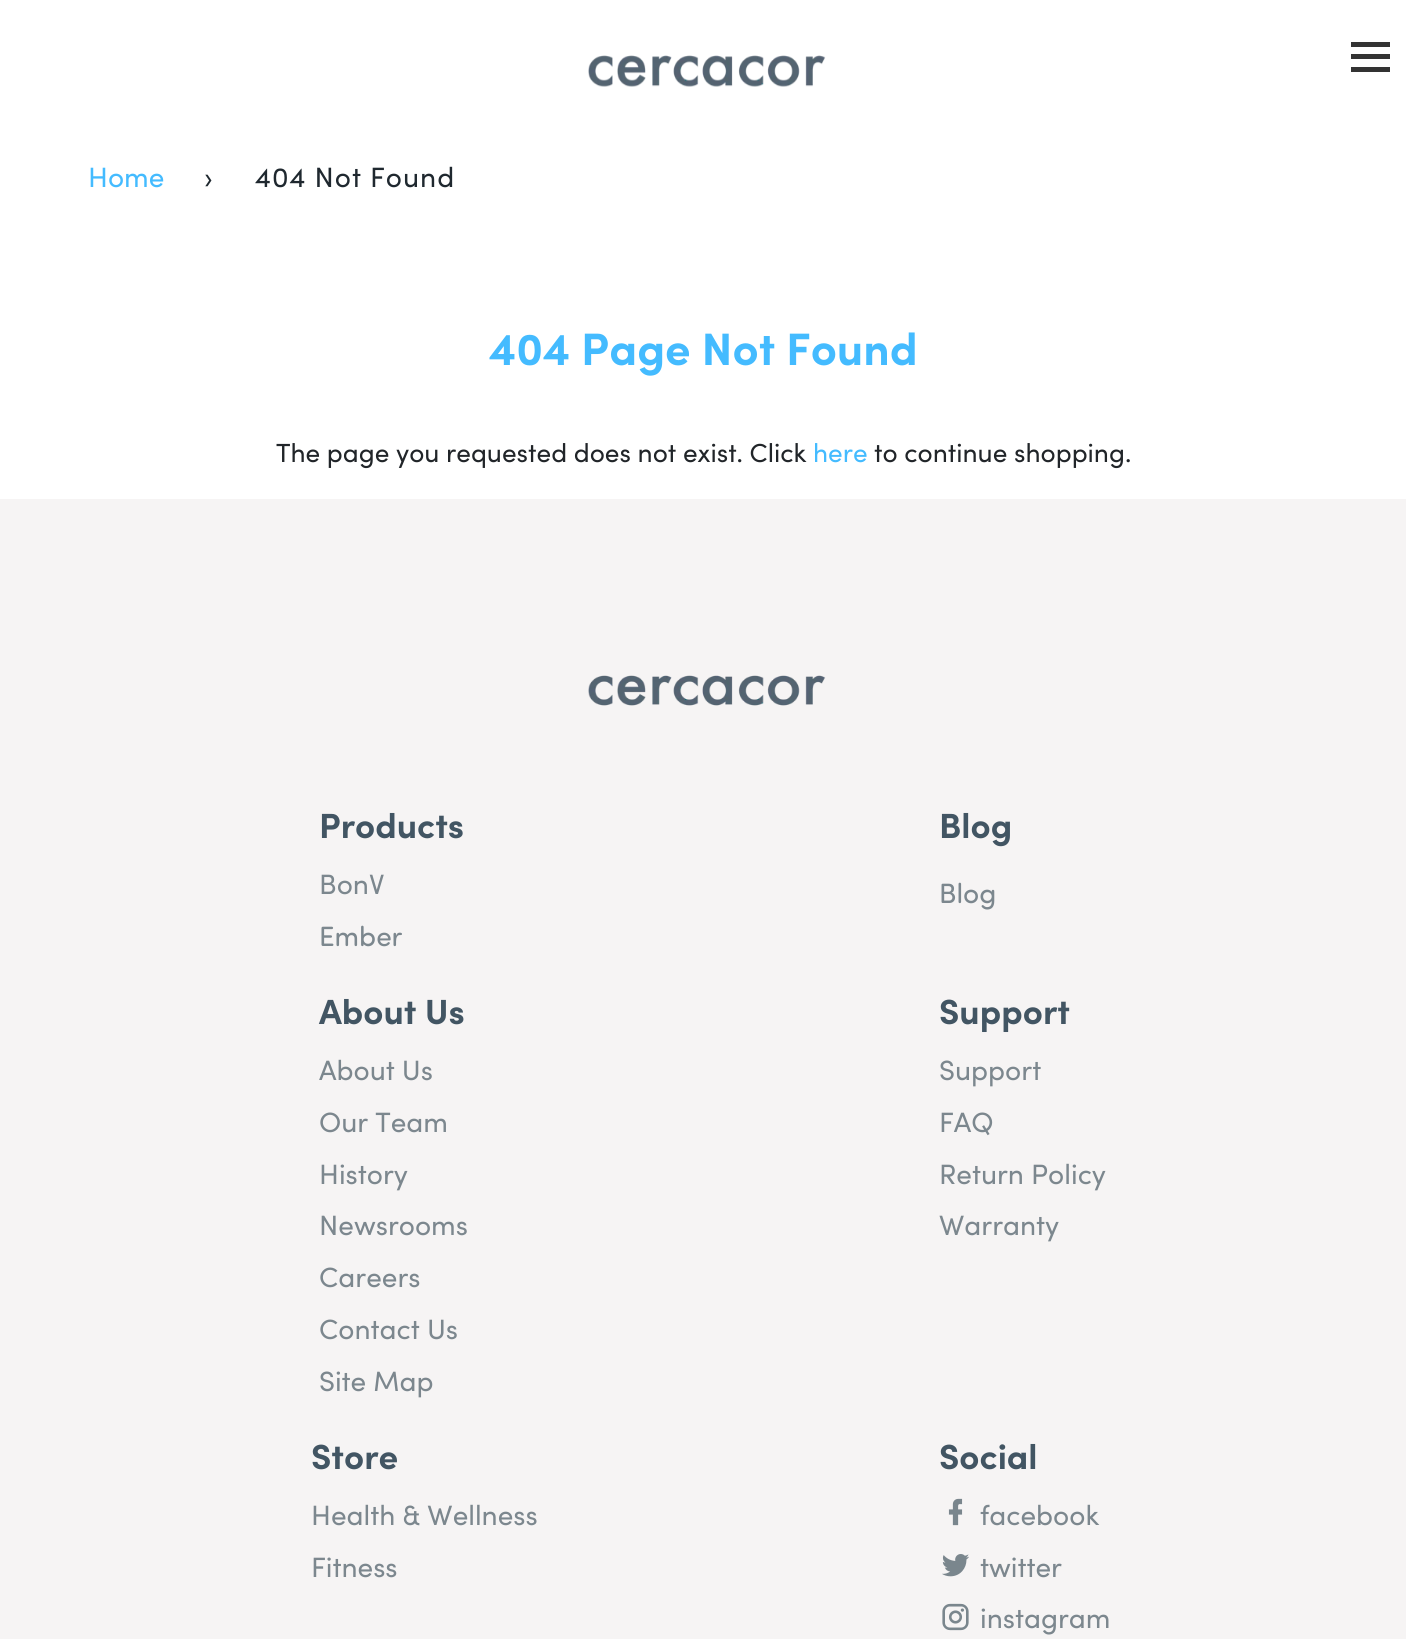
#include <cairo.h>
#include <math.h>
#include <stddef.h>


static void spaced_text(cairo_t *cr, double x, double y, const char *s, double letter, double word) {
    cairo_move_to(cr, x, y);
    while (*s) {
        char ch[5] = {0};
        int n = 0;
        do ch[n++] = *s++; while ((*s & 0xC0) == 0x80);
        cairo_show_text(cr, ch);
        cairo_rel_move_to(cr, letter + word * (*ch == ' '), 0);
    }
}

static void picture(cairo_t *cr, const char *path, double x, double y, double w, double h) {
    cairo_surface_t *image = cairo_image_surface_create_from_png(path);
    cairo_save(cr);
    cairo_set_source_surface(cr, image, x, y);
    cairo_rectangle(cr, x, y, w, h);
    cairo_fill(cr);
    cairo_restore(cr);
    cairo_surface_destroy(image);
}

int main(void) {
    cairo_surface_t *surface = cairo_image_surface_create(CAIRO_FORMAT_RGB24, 1406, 1639);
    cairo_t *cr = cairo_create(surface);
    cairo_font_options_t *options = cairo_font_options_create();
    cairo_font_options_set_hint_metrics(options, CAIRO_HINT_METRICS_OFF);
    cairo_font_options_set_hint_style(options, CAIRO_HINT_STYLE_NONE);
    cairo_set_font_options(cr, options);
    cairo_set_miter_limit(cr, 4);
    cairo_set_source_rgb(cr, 1, 1, 1);
    cairo_paint(cr);
    picture(cr, "img1.png", 588, 55, 238, 32);
    cairo_set_source_rgb(cr, 0.2, 0.2, 0.2);
    cairo_rectangle(cr, 1351, 42, 39, 5);
    cairo_fill(cr);
    cairo_rectangle(cr, 1351, 54, 39, 5);
    cairo_fill(cr);
    cairo_rectangle(cr, 1351, 67, 39, 5);
    cairo_fill(cr);
    cairo_select_font_face(cr, "Sofia", CAIRO_FONT_SLANT_NORMAL, CAIRO_FONT_WEIGHT_NORMAL);
    cairo_set_font_size(cr, 28);
    cairo_set_source_rgb(cr, 0.267, 0.733, 1);
    cairo_move_to(cr, 88, 187);
    cairo_show_text(cr, "Home");
    cairo_set_source_rgb(cr, 0.122, 0.157, 0.184);
    cairo_move_to(cr, 204, 187);
    cairo_show_text(cr, "›");
    spaced_text(cr, 255, 187, "404 Not Found", 1, 0);
    cairo_select_font_face(cr, "Sofia", CAIRO_FONT_SLANT_NORMAL, CAIRO_FONT_WEIGHT_BOLD);
    cairo_set_font_size(cr, 45.5);
    cairo_set_source_rgb(cr, 0.267, 0.733, 1);
    cairo_move_to(cr, 489, 365);
    cairo_show_text(cr, "404 Page Not Found");
    cairo_select_font_face(cr, "Sofia", CAIRO_FONT_SLANT_NORMAL, CAIRO_FONT_WEIGHT_NORMAL);
    cairo_set_font_size(cr, 26.25);
    cairo_set_source_rgb(cr, 0.129, 0.145, 0.161);
    cairo_move_to(cr, 276, 462);
    cairo_show_text(cr, "The page you requested does not exist. Click");
    cairo_set_source_rgb(cr, 0.267, 0.733, 1);
    cairo_move_to(cr, 813, 462);
    cairo_show_text(cr, "here");
    cairo_set_source_rgb(cr, 0.129, 0.145, 0.161);
    cairo_move_to(cr, 874, 462);
    cairo_show_text(cr, "to continue shopping.");
    cairo_set_source_rgb(cr, 0.961, 0.957, 0.957);
    cairo_rectangle(cr, 0, 499, 1406, 1140);
    cairo_fill(cr);
    picture(cr, "img2.png", 588, 675, 238, 31);
    cairo_select_font_face(cr, "Sofia", CAIRO_FONT_SLANT_NORMAL, CAIRO_FONT_WEIGHT_BOLD);
    cairo_set_font_size(cr, 35);
    cairo_set_source_rgb(cr, 0.259, 0.333, 0.388);
    cairo_move_to(cr, 319, 838);
    cairo_show_text(cr, "Products");
    cairo_select_font_face(cr, "Sofia", CAIRO_FONT_SLANT_NORMAL, CAIRO_FONT_WEIGHT_NORMAL);
    cairo_set_font_size(cr, 28);
    cairo_set_source_rgb(cr, 0.486, 0.529, 0.557);
    cairo_move_to(cr, 319, 894);
    cairo_show_text(cr, "BonV");
    cairo_select_font_face(cr, "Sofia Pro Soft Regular", CAIRO_FONT_SLANT_NORMAL, CAIRO_FONT_WEIGHT_NORMAL);
    cairo_move_to(cr, 319, 946);
    cairo_show_text(cr, "Ember");
    cairo_select_font_face(cr, "Sofia", CAIRO_FONT_SLANT_NORMAL, CAIRO_FONT_WEIGHT_BOLD);
    cairo_set_font_size(cr, 35);
    cairo_set_source_rgb(cr, 0.259, 0.333, 0.388);
    cairo_move_to(cr, 939, 838);
    cairo_show_text(cr, "Blog");
    cairo_select_font_face(cr, "Sofia Pro Soft Regular", CAIRO_FONT_SLANT_NORMAL, CAIRO_FONT_WEIGHT_NORMAL);
    cairo_set_font_size(cr, 28);
    cairo_set_source_rgb(cr, 0.486, 0.529, 0.557);
    cairo_move_to(cr, 939, 903);
    cairo_show_text(cr, "Blog");
    cairo_select_font_face(cr, "Sofia", CAIRO_FONT_SLANT_NORMAL, CAIRO_FONT_WEIGHT_BOLD);
    cairo_set_font_size(cr, 35);
    cairo_set_source_rgb(cr, 0.259, 0.333, 0.388);
    cairo_move_to(cr, 319, 1024);
    cairo_show_text(cr, "About Us");
    cairo_select_font_face(cr, "Sofia", CAIRO_FONT_SLANT_NORMAL, CAIRO_FONT_WEIGHT_NORMAL);
    cairo_set_font_size(cr, 28);
    cairo_set_source_rgb(cr, 0.486, 0.529, 0.557);
    cairo_move_to(cr, 319, 1080);
    cairo_show_text(cr, "About Us");
    cairo_move_to(cr, 319, 1132);
    cairo_show_text(cr, "Our Team");
    cairo_move_to(cr, 319, 1184);
    cairo_show_text(cr, "History");
    cairo_move_to(cr, 319, 1235);
    cairo_show_text(cr, "Newsrooms");
    cairo_move_to(cr, 319, 1287);
    cairo_show_text(cr, "Careers");
    cairo_move_to(cr, 319, 1339);
    cairo_show_text(cr, "Contact Us");
    cairo_move_to(cr, 319, 1391);
    cairo_show_text(cr, "Site Map");
    cairo_select_font_face(cr, "Sofia", CAIRO_FONT_SLANT_NORMAL, CAIRO_FONT_WEIGHT_BOLD);
    cairo_set_font_size(cr, 35);
    cairo_set_source_rgb(cr, 0.259, 0.333, 0.388);
    cairo_move_to(cr, 939, 1024);
    cairo_show_text(cr, "Support");
    cairo_select_font_face(cr, "Sofia", CAIRO_FONT_SLANT_NORMAL, CAIRO_FONT_WEIGHT_NORMAL);
    cairo_set_font_size(cr, 28);
    cairo_set_source_rgb(cr, 0.486, 0.529, 0.557);
    cairo_move_to(cr, 939, 1080);
    cairo_show_text(cr, "Support");
    cairo_move_to(cr, 939, 1132);
    cairo_show_text(cr, "FAQ");
    cairo_move_to(cr, 939, 1184);
    cairo_show_text(cr, "Return Policy");
    cairo_move_to(cr, 939, 1235);
    cairo_show_text(cr, "Warranty");
    cairo_select_font_face(cr, "Sofia", CAIRO_FONT_SLANT_NORMAL, CAIRO_FONT_WEIGHT_BOLD);
    cairo_set_font_size(cr, 35);
    cairo_set_source_rgb(cr, 0.259, 0.333, 0.388);
    cairo_move_to(cr, 311, 1469);
    cairo_show_text(cr, "Store");
    cairo_select_font_face(cr, "Sofia", CAIRO_FONT_SLANT_NORMAL, CAIRO_FONT_WEIGHT_NORMAL);
    cairo_set_font_size(cr, 28);
    cairo_set_source_rgb(cr, 0.486, 0.529, 0.557);
    cairo_move_to(cr, 311, 1525);
    cairo_show_text(cr, "Health & Wellness");
    cairo_move_to(cr, 311, 1577);
    cairo_show_text(cr, "Fitness");
    cairo_select_font_face(cr, "Sofia", CAIRO_FONT_SLANT_NORMAL, CAIRO_FONT_WEIGHT_BOLD);
    cairo_set_font_size(cr, 35);
    cairo_set_source_rgb(cr, 0.259, 0.333, 0.388);
    cairo_move_to(cr, 939, 1469);
    cairo_show_text(cr, "Social");
    picture(cr, "img3.png", 948, 1498, 15, 28);
    cairo_select_font_face(cr, "Sofia", CAIRO_FONT_SLANT_NORMAL, CAIRO_FONT_WEIGHT_NORMAL);
    cairo_set_font_size(cr, 28);
    cairo_set_source_rgb(cr, 0.486, 0.529, 0.557);
    cairo_move_to(cr, 980, 1525);
    cairo_show_text(cr, "facebook");
    picture(cr, "img4.png", 942, 1554, 27, 23);
    cairo_move_to(cr, 980, 1577);
    cairo_show_text(cr, "twitter");
    picture(cr, "img5.png", 942, 1603, 27, 28);
    cairo_move_to(cr, 980, 1628);
    cairo_show_text(cr, "instagram");
    cairo_surface_write_to_png(surface, "page.png");
    cairo_font_options_destroy(options);
    cairo_destroy(cr);
    cairo_surface_destroy(surface);
    return 0;
}
